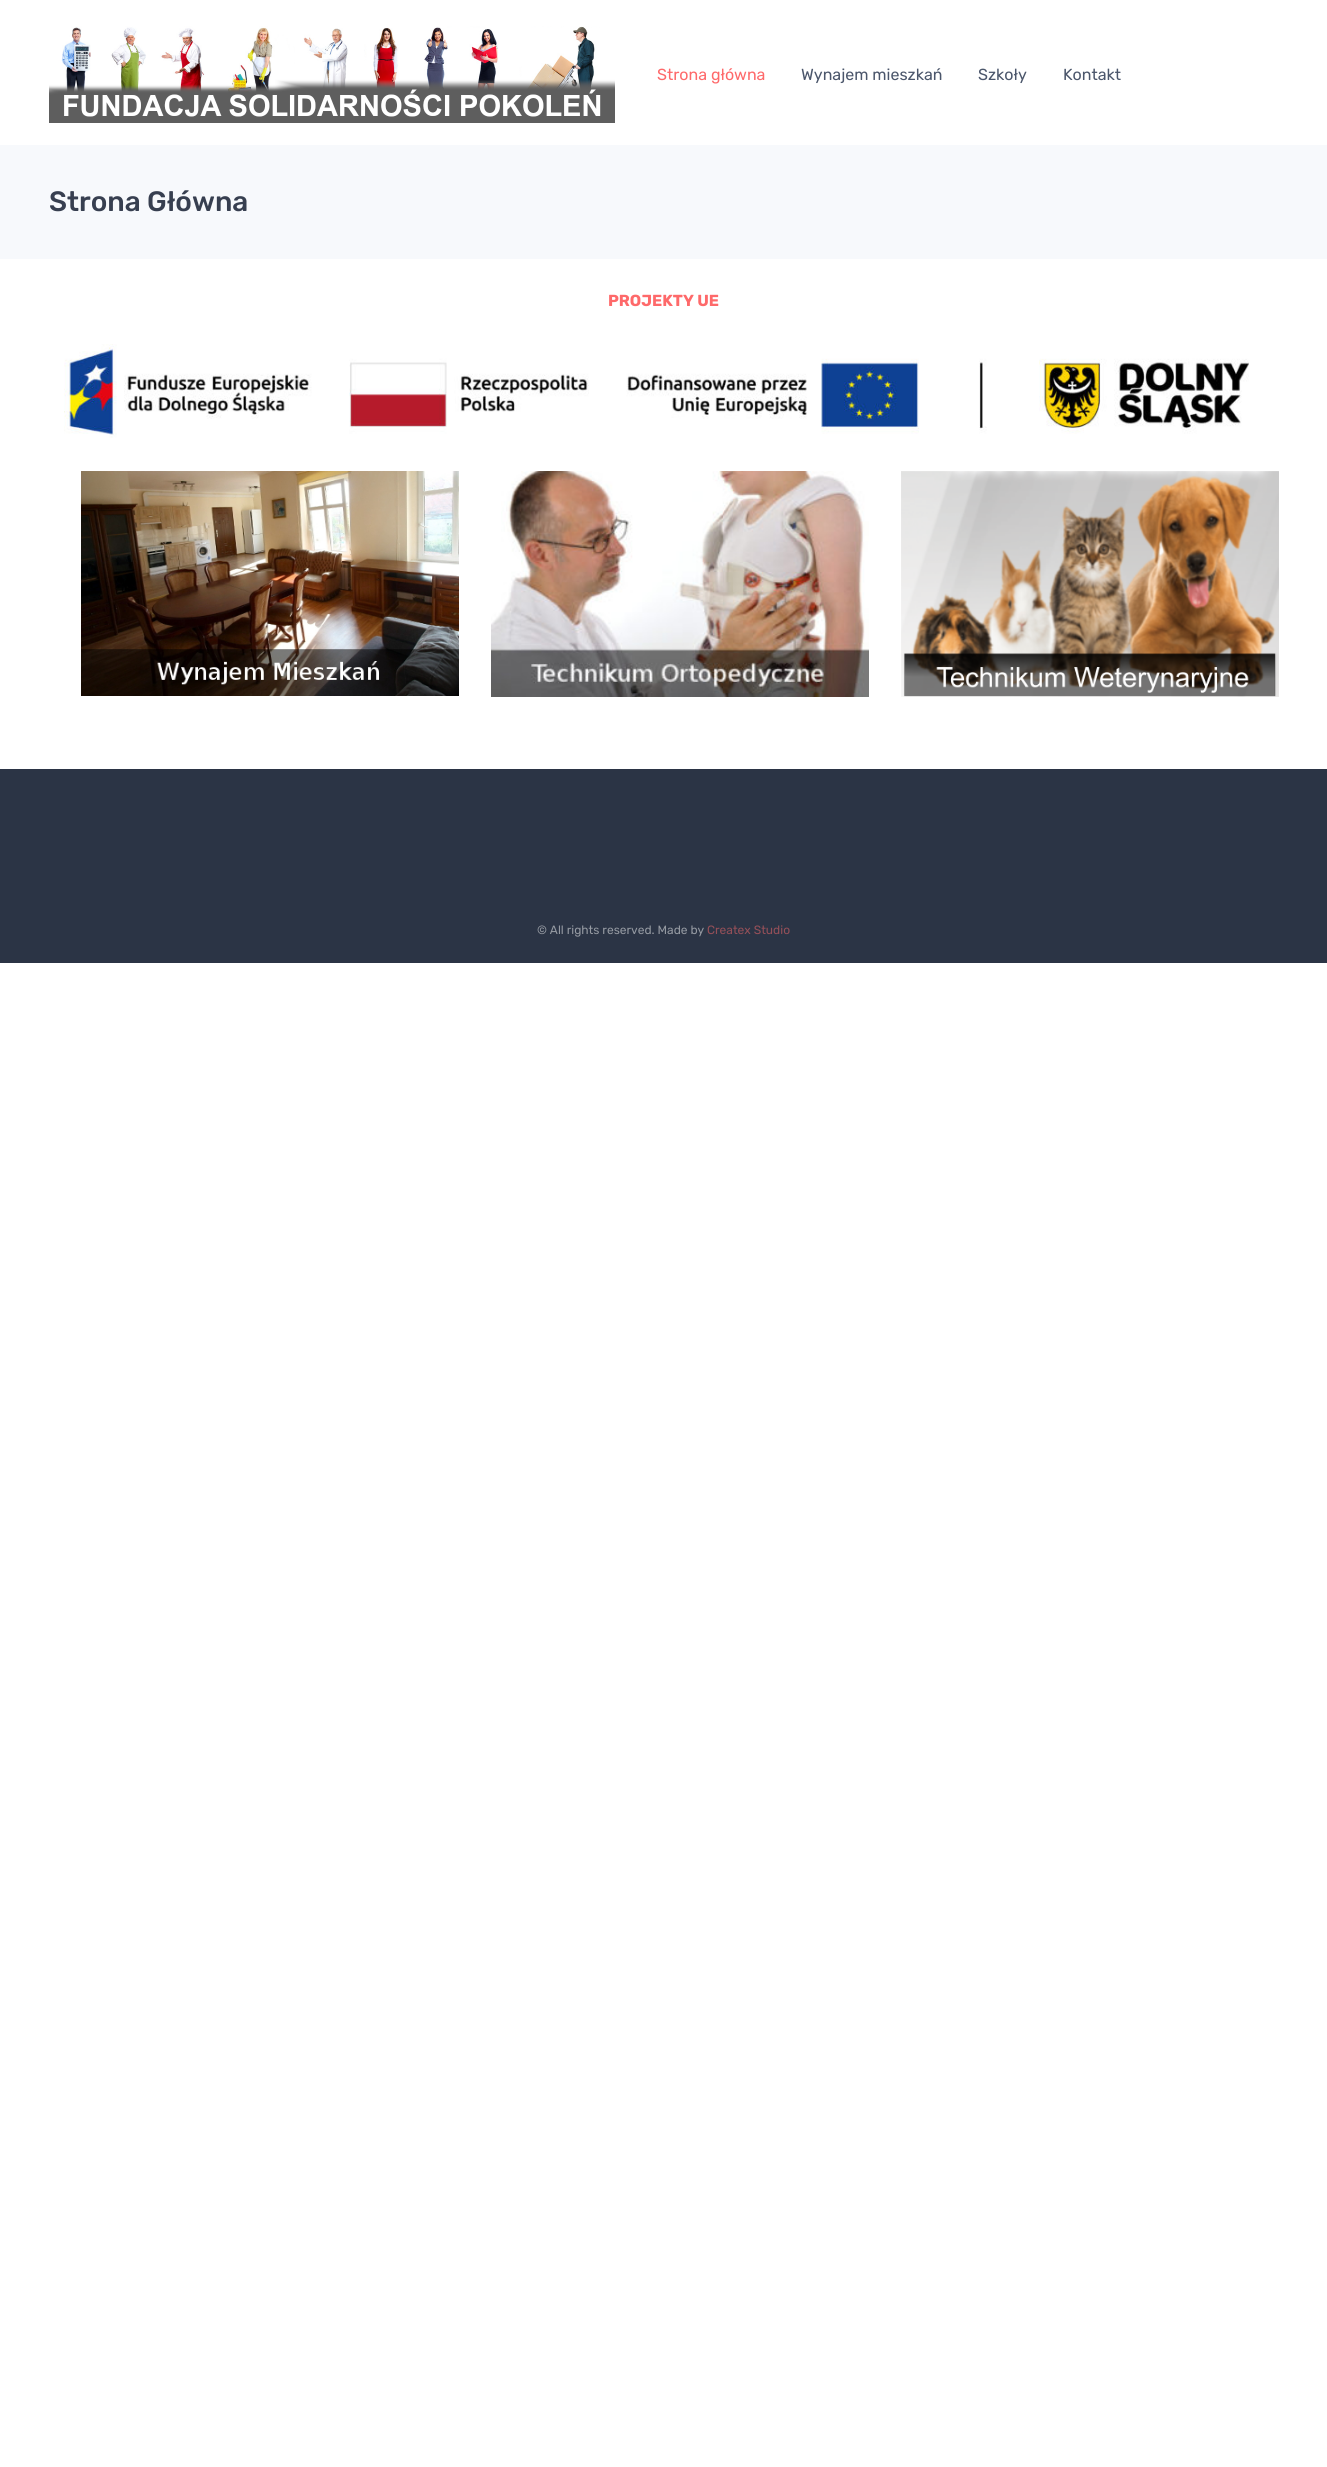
#include <cairo.h>
#include <math.h>
#include <stddef.h>


static void picture(cairo_t *cr, const char *path, double x, double y, double w, double h) {
    cairo_surface_t *image = cairo_image_surface_create_from_png(path);
    cairo_save(cr);
    cairo_set_source_surface(cr, image, x, y);
    cairo_rectangle(cr, x, y, w, h);
    cairo_fill(cr);
    cairo_restore(cr);
    cairo_surface_destroy(image);
}

int main(void) {
    cairo_surface_t *surface = cairo_image_surface_create(CAIRO_FORMAT_RGB24, 1327, 2467);
    cairo_t *cr = cairo_create(surface);
    cairo_font_options_t *options = cairo_font_options_create();
    cairo_font_options_set_hint_metrics(options, CAIRO_HINT_METRICS_OFF);
    cairo_font_options_set_hint_style(options, CAIRO_HINT_STYLE_NONE);
    cairo_set_font_options(cr, options);
    cairo_set_miter_limit(cr, 4);
    cairo_set_source_rgb(cr, 1, 1, 1);
    cairo_paint(cr);
    picture(cr, "img1.png", 49, 26, 566, 97);
    cairo_select_font_face(cr, "Rubik", CAIRO_FONT_SLANT_NORMAL, CAIRO_FONT_WEIGHT_NORMAL);
    cairo_set_font_size(cr, 16);
    cairo_set_source_rgb(cr, 0.996, 0.412, 0.416);
    cairo_move_to(cr, 657, 80);
    cairo_show_text(cr, "Strona główna");
    cairo_set_source_rgb(cr, 0.294, 0.337, 0.42);
    cairo_move_to(cr, 801, 80);
    cairo_show_text(cr, "Wynajem mieszkań");
    cairo_move_to(cr, 978, 80);
    cairo_show_text(cr, "Szkoły");
    cairo_move_to(cr, 1063, 80);
    cairo_show_text(cr, "Kontakt");
    cairo_set_source_rgb(cr, 0.965, 0.976, 0.988);
    cairo_rectangle(cr, 0, 145, 1327, 114);
    cairo_fill(cr);
    cairo_select_font_face(cr, "Rubik Medium", CAIRO_FONT_SLANT_NORMAL, CAIRO_FONT_WEIGHT_NORMAL);
    cairo_set_font_size(cr, 28);
    cairo_set_source_rgb(cr, 0.216, 0.247, 0.314);
    cairo_move_to(cr, 49, 211);
    cairo_show_text(cr, "Strona Główna");
    cairo_select_font_face(cr, "Rubik", CAIRO_FONT_SLANT_NORMAL, CAIRO_FONT_WEIGHT_BOLD);
    cairo_set_font_size(cr, 16);
    cairo_set_source_rgb(cr, 0.996, 0.412, 0.416);
    cairo_move_to(cr, 608, 306);
    cairo_show_text(cr, "PROJEKTY UE");
    picture(cr, "img2.png", 64, 344, 1185, 94);
    picture(cr, "img3.png", 81, 471, 378, 225);
    picture(cr, "img4.png", 491, 471, 378, 226);
    picture(cr, "img5.png", 901, 471, 378, 226);
    cairo_set_source_rgb(cr, 0.169, 0.204, 0.271);
    cairo_rectangle(cr, 0, 769, 1327, 194);
    cairo_fill(cr);
    cairo_select_font_face(cr, "Rubik", CAIRO_FONT_SLANT_NORMAL, CAIRO_FONT_WEIGHT_NORMAL);
    cairo_set_font_size(cr, 12);
    cairo_set_source_rgb(cr, 0.584, 0.604, 0.635);
    cairo_move_to(cr, 537, 934);
    cairo_show_text(cr, "© All rights reserved. Made by");
    cairo_set_source_rgb(cr, 0.584, 0.31, 0.345);
    cairo_move_to(cr, 707, 934);
    cairo_show_text(cr, "Createx Studio");
    cairo_surface_write_to_png(surface, "page.png");
    cairo_font_options_destroy(options);
    cairo_destroy(cr);
    cairo_surface_destroy(surface);
    return 0;
}
